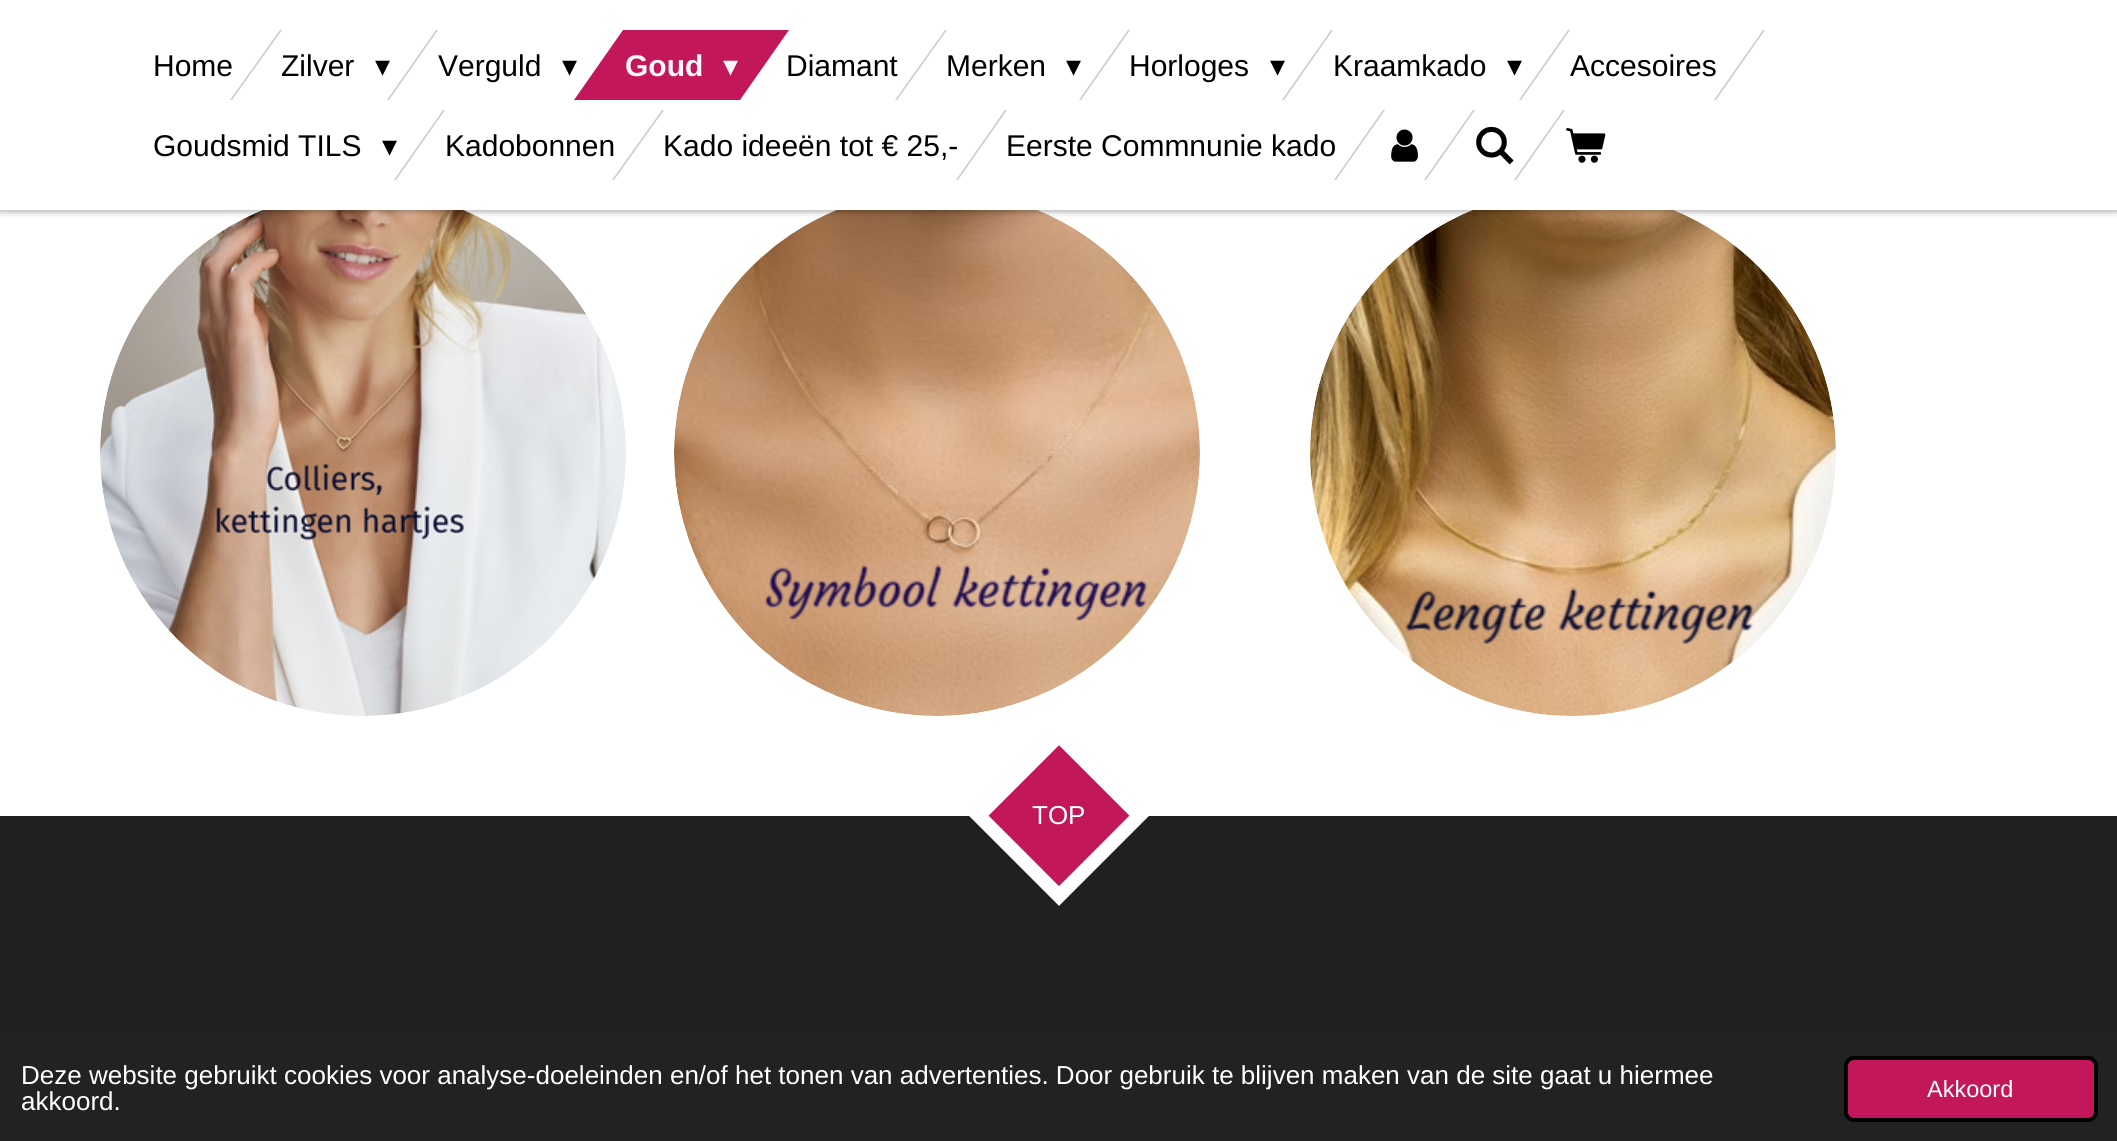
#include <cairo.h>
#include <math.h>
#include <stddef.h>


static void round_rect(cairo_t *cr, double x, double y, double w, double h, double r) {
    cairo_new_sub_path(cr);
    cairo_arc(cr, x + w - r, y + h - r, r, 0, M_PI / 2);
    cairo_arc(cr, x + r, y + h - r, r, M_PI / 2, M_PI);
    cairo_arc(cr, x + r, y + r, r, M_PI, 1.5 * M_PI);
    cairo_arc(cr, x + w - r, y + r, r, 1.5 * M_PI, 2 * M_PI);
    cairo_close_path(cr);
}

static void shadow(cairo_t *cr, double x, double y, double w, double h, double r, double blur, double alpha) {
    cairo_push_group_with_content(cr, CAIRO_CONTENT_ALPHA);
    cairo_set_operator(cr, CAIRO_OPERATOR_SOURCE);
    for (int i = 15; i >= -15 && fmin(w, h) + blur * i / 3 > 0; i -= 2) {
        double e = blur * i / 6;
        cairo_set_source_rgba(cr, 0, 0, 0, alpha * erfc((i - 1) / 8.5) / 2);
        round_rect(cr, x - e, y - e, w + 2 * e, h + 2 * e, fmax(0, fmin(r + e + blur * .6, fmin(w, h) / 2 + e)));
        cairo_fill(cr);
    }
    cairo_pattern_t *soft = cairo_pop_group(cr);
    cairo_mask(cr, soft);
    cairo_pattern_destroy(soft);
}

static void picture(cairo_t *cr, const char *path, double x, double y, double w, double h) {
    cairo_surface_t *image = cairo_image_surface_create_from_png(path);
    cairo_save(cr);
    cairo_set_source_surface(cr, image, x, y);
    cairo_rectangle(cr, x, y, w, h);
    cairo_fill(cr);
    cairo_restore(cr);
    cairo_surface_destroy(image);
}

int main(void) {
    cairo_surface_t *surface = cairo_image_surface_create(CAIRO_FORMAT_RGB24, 2117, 1141);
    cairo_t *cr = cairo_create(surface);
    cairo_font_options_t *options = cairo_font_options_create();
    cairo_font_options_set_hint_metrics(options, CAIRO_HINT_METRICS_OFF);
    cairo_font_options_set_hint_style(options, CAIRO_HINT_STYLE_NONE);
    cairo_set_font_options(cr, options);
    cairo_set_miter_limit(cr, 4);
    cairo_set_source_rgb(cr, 1, 1, 1);
    cairo_paint(cr);
    picture(cr, "img4.png", 100, 210, 526, 506);
    picture(cr, "img5.png", 674, 210, 526, 506);
    picture(cr, "img6.png", 1310, 210, 526, 506);
    cairo_set_source_rgb(cr, 0, 0, 0);
    shadow(cr, 0, -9, 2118, 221, 0, 3, 0.3);
    cairo_set_source_rgb(cr, 1, 1, 1);
    cairo_rectangle(cr, 0, 0, 2117, 210);
    cairo_fill(cr);
    cairo_set_source_rgb(cr, 0.8, 0.8, 0.8);
    cairo_new_path(cr);
    cairo_move_to(cr, 280, 30);
    cairo_line_to(cr, 282, 30);
    cairo_line_to(cr, 232, 100);
    cairo_line_to(cr, 230, 100);
    cairo_close_path(cr);
    cairo_fill(cr);
    cairo_select_font_face(cr, "Liberation Sans", CAIRO_FONT_SLANT_NORMAL, CAIRO_FONT_WEIGHT_NORMAL);
    cairo_set_font_size(cr, 30);
    cairo_set_source_rgb(cr, 0, 0, 0);
    cairo_move_to(cr, 153, 76);
    cairo_show_text(cr, "Home");
    cairo_move_to(cr, 281, 76);
    cairo_show_text(cr, "Zilver");
    cairo_set_source_rgb(cr, 0.8, 0.8, 0.8);
    cairo_new_path(cr);
    cairo_move_to(cr, 436, 30);
    cairo_line_to(cr, 438, 30);
    cairo_line_to(cr, 389, 100);
    cairo_line_to(cr, 387, 100);
    cairo_close_path(cr);
    cairo_fill(cr);
    cairo_select_font_face(cr, "DejaVu Sans", CAIRO_FONT_SLANT_NORMAL, CAIRO_FONT_WEIGHT_NORMAL);
    cairo_set_source_rgb(cr, 0, 0, 0);
    cairo_move_to(cr, 375, 76);
    cairo_show_text(cr, "▾");
    cairo_select_font_face(cr, "Liberation Sans", CAIRO_FONT_SLANT_NORMAL, CAIRO_FONT_WEIGHT_NORMAL);
    cairo_move_to(cr, 438, 76);
    cairo_show_text(cr, "Verguld");
    cairo_select_font_face(cr, "DejaVu Sans", CAIRO_FONT_SLANT_NORMAL, CAIRO_FONT_WEIGHT_NORMAL);
    cairo_move_to(cr, 562, 76);
    cairo_show_text(cr, "▾");
    cairo_set_source_rgb(cr, 0.8, 0.8, 0.8);
    cairo_new_path(cr);
    cairo_move_to(cr, 945, 30);
    cairo_line_to(cr, 947, 30);
    cairo_line_to(cr, 897, 100);
    cairo_line_to(cr, 895, 100);
    cairo_close_path(cr);
    cairo_fill(cr);
    cairo_select_font_face(cr, "Liberation Sans", CAIRO_FONT_SLANT_NORMAL, CAIRO_FONT_WEIGHT_NORMAL);
    cairo_set_source_rgb(cr, 0, 0, 0);
    cairo_move_to(cr, 786, 76);
    cairo_show_text(cr, "Diamant");
    cairo_set_source_rgb(cr, 0.761, 0.094, 0.357);
    cairo_new_path(cr);
    cairo_move_to(cr, 623, 30);
    cairo_line_to(cr, 789, 30);
    cairo_line_to(cr, 740, 100);
    cairo_line_to(cr, 574, 100);
    cairo_close_path(cr);
    cairo_fill(cr);
    cairo_select_font_face(cr, "Liberation Sans", CAIRO_FONT_SLANT_NORMAL, CAIRO_FONT_WEIGHT_BOLD);
    cairo_set_source_rgb(cr, 0.996, 0.961, 0.973);
    cairo_move_to(cr, 625, 76);
    cairo_show_text(cr, "Goud");
    cairo_select_font_face(cr, "DejaVu Sans", CAIRO_FONT_SLANT_NORMAL, CAIRO_FONT_WEIGHT_NORMAL);
    cairo_move_to(cr, 723, 76);
    cairo_show_text(cr, "▾");
    cairo_select_font_face(cr, "Liberation Sans", CAIRO_FONT_SLANT_NORMAL, CAIRO_FONT_WEIGHT_NORMAL);
    cairo_set_source_rgb(cr, 0, 0, 0);
    cairo_move_to(cr, 946, 76);
    cairo_show_text(cr, "Merken");
    cairo_set_source_rgb(cr, 0.8, 0.8, 0.8);
    cairo_new_path(cr);
    cairo_move_to(cr, 1128, 30);
    cairo_line_to(cr, 1130, 30);
    cairo_line_to(cr, 1081, 100);
    cairo_line_to(cr, 1079, 100);
    cairo_close_path(cr);
    cairo_fill(cr);
    cairo_select_font_face(cr, "DejaVu Sans", CAIRO_FONT_SLANT_NORMAL, CAIRO_FONT_WEIGHT_NORMAL);
    cairo_set_source_rgb(cr, 0, 0, 0);
    cairo_move_to(cr, 1066, 76);
    cairo_show_text(cr, "▾");
    cairo_select_font_face(cr, "Liberation Sans", CAIRO_FONT_SLANT_NORMAL, CAIRO_FONT_WEIGHT_NORMAL);
    cairo_move_to(cr, 1129, 76);
    cairo_show_text(cr, "Horloges");
    cairo_set_source_rgb(cr, 0.8, 0.8, 0.8);
    cairo_new_path(cr);
    cairo_move_to(cr, 1331, 30);
    cairo_line_to(cr, 1333, 30);
    cairo_line_to(cr, 1284, 100);
    cairo_line_to(cr, 1282, 100);
    cairo_close_path(cr);
    cairo_fill(cr);
    cairo_select_font_face(cr, "DejaVu Sans", CAIRO_FONT_SLANT_NORMAL, CAIRO_FONT_WEIGHT_NORMAL);
    cairo_set_source_rgb(cr, 0, 0, 0);
    cairo_move_to(cr, 1270, 76);
    cairo_show_text(cr, "▾");
    cairo_select_font_face(cr, "Liberation Sans", CAIRO_FONT_SLANT_NORMAL, CAIRO_FONT_WEIGHT_NORMAL);
    cairo_move_to(cr, 1333, 76);
    cairo_show_text(cr, "Kraamkado");
    cairo_set_source_rgb(cr, 0.8, 0.8, 0.8);
    cairo_new_path(cr);
    cairo_move_to(cr, 1568, 30);
    cairo_line_to(cr, 1570, 30);
    cairo_line_to(cr, 1521, 100);
    cairo_line_to(cr, 1519, 100);
    cairo_close_path(cr);
    cairo_fill(cr);
    cairo_select_font_face(cr, "DejaVu Sans", CAIRO_FONT_SLANT_NORMAL, CAIRO_FONT_WEIGHT_NORMAL);
    cairo_set_source_rgb(cr, 0, 0, 0);
    cairo_move_to(cr, 1507, 76);
    cairo_show_text(cr, "▾");
    cairo_set_source_rgb(cr, 0.8, 0.8, 0.8);
    cairo_new_path(cr);
    cairo_move_to(cr, 1763, 30);
    cairo_line_to(cr, 1765, 30);
    cairo_line_to(cr, 1716, 100);
    cairo_line_to(cr, 1714, 100);
    cairo_close_path(cr);
    cairo_fill(cr);
    cairo_select_font_face(cr, "Liberation Sans", CAIRO_FONT_SLANT_NORMAL, CAIRO_FONT_WEIGHT_NORMAL);
    cairo_set_source_rgb(cr, 0, 0, 0);
    cairo_move_to(cr, 1570, 76);
    cairo_show_text(cr, "Accesoires");
    cairo_move_to(cr, 153, 156);
    cairo_show_text(cr, "Goudsmid TILS");
    cairo_set_source_rgb(cr, 0.8, 0.8, 0.8);
    cairo_new_path(cr);
    cairo_move_to(cr, 443, 110);
    cairo_line_to(cr, 445, 110);
    cairo_line_to(cr, 396, 180);
    cairo_line_to(cr, 394, 180);
    cairo_close_path(cr);
    cairo_fill(cr);
    cairo_select_font_face(cr, "DejaVu Sans", CAIRO_FONT_SLANT_NORMAL, CAIRO_FONT_WEIGHT_NORMAL);
    cairo_set_source_rgb(cr, 0, 0, 0);
    cairo_move_to(cr, 382, 156);
    cairo_show_text(cr, "▾");
    cairo_set_source_rgb(cr, 0.8, 0.8, 0.8);
    cairo_new_path(cr);
    cairo_move_to(cr, 662, 110);
    cairo_line_to(cr, 664, 110);
    cairo_line_to(cr, 614, 180);
    cairo_line_to(cr, 612, 180);
    cairo_close_path(cr);
    cairo_fill(cr);
    cairo_select_font_face(cr, "Liberation Sans", CAIRO_FONT_SLANT_NORMAL, CAIRO_FONT_WEIGHT_NORMAL);
    cairo_set_source_rgb(cr, 0, 0, 0);
    cairo_move_to(cr, 445, 156);
    cairo_show_text(cr, "Kadobonnen");
    cairo_set_source_rgb(cr, 0.8, 0.8, 0.8);
    cairo_new_path(cr);
    cairo_move_to(cr, 1005, 110);
    cairo_line_to(cr, 1007, 110);
    cairo_line_to(cr, 958, 180);
    cairo_line_to(cr, 956, 180);
    cairo_close_path(cr);
    cairo_fill(cr);
    cairo_set_source_rgb(cr, 0, 0, 0);
    cairo_move_to(cr, 663, 156);
    cairo_show_text(cr, "Kado ideeën tot € 25,-");
    cairo_set_source_rgb(cr, 0.8, 0.8, 0.8);
    cairo_new_path(cr);
    cairo_move_to(cr, 1383, 110);
    cairo_line_to(cr, 1385, 110);
    cairo_line_to(cr, 1336, 180);
    cairo_line_to(cr, 1334, 180);
    cairo_close_path(cr);
    cairo_fill(cr);
    cairo_set_source_rgb(cr, 0, 0, 0);
    cairo_move_to(cr, 1006, 156);
    cairo_show_text(cr, "Eerste Commnunie kado");
    picture(cr, "img1.png", 1391, 129, 27, 33);
    cairo_set_source_rgb(cr, 0.8, 0.8, 0.8);
    cairo_new_path(cr);
    cairo_move_to(cr, 1473, 110);
    cairo_line_to(cr, 1475, 110);
    cairo_line_to(cr, 1426, 180);
    cairo_line_to(cr, 1424, 180);
    cairo_close_path(cr);
    cairo_fill(cr);
    picture(cr, "img2.png", 1476, 126, 38, 39);
    cairo_new_path(cr);
    cairo_move_to(cr, 1563, 110);
    cairo_line_to(cr, 1565, 110);
    cairo_line_to(cr, 1516, 180);
    cairo_line_to(cr, 1514, 180);
    cairo_close_path(cr);
    cairo_fill(cr);
    picture(cr, "img3.png", 1566, 128, 40, 35);
    cairo_set_source_rgb(cr, 0.125, 0.125, 0.125);
    cairo_rectangle(cr, 0, 816, 2117, 218);
    cairo_fill(cr);
    cairo_set_source_rgb(cr, 0.761, 0.094, 0.357);
    cairo_new_path(cr);
    cairo_move_to(cr, 1059, 745);
    cairo_line_to(cr, 1130, 816);
    cairo_line_to(cr, 1059, 886);
    cairo_line_to(cr, 988, 816);
    cairo_close_path(cr);
    cairo_fill(cr);
    cairo_new_path(cr);
    cairo_move_to(cr, 1059, 735);
    cairo_line_to(cr, 1139.5, 815.5);
    cairo_line_to(cr, 1059, 896);
    cairo_line_to(cr, 978.5, 815.5);
    cairo_close_path(cr);
    cairo_set_source_rgb(cr, 1, 1, 1);
    cairo_set_line_width(cr, 14);
    cairo_stroke(cr);
    cairo_set_font_size(cr, 26);
    cairo_move_to(cr, 1032, 824);
    cairo_show_text(cr, "TOP");
    cairo_set_source_rgb(cr, 0.133, 0.133, 0.133);
    cairo_rectangle(cr, 0, 1034, 2117, 107);
    cairo_fill(cr);
    cairo_set_source_rgb(cr, 1, 1, 1);
    cairo_move_to(cr, 21, 1084);
    cairo_show_text(cr, "Deze website gebruikt cookies voor analyse-doeleinden en/of het tonen van advertenties. Door gebruik te blijven maken van de site gaat u hiermee");
    cairo_move_to(cr, 21, 1110);
    cairo_show_text(cr, "akkoord.");
    cairo_set_source_rgb(cr, 0.761, 0.094, 0.357);
    round_rect(cr, 1846, 1058, 250, 62, 8);
    cairo_fill_preserve(cr);
    cairo_set_source_rgb(cr, 0, 0, 0);
    cairo_set_line_width(cr, 4);
    cairo_stroke(cr);
    cairo_set_font_size(cr, 23.5);
    cairo_set_source_rgb(cr, 1, 1, 1);
    cairo_move_to(cr, 1927, 1097);
    cairo_show_text(cr, "Akkoord");
    cairo_surface_write_to_png(surface, "page.png");
    cairo_font_options_destroy(options);
    cairo_destroy(cr);
    cairo_surface_destroy(surface);
    return 0;
}
